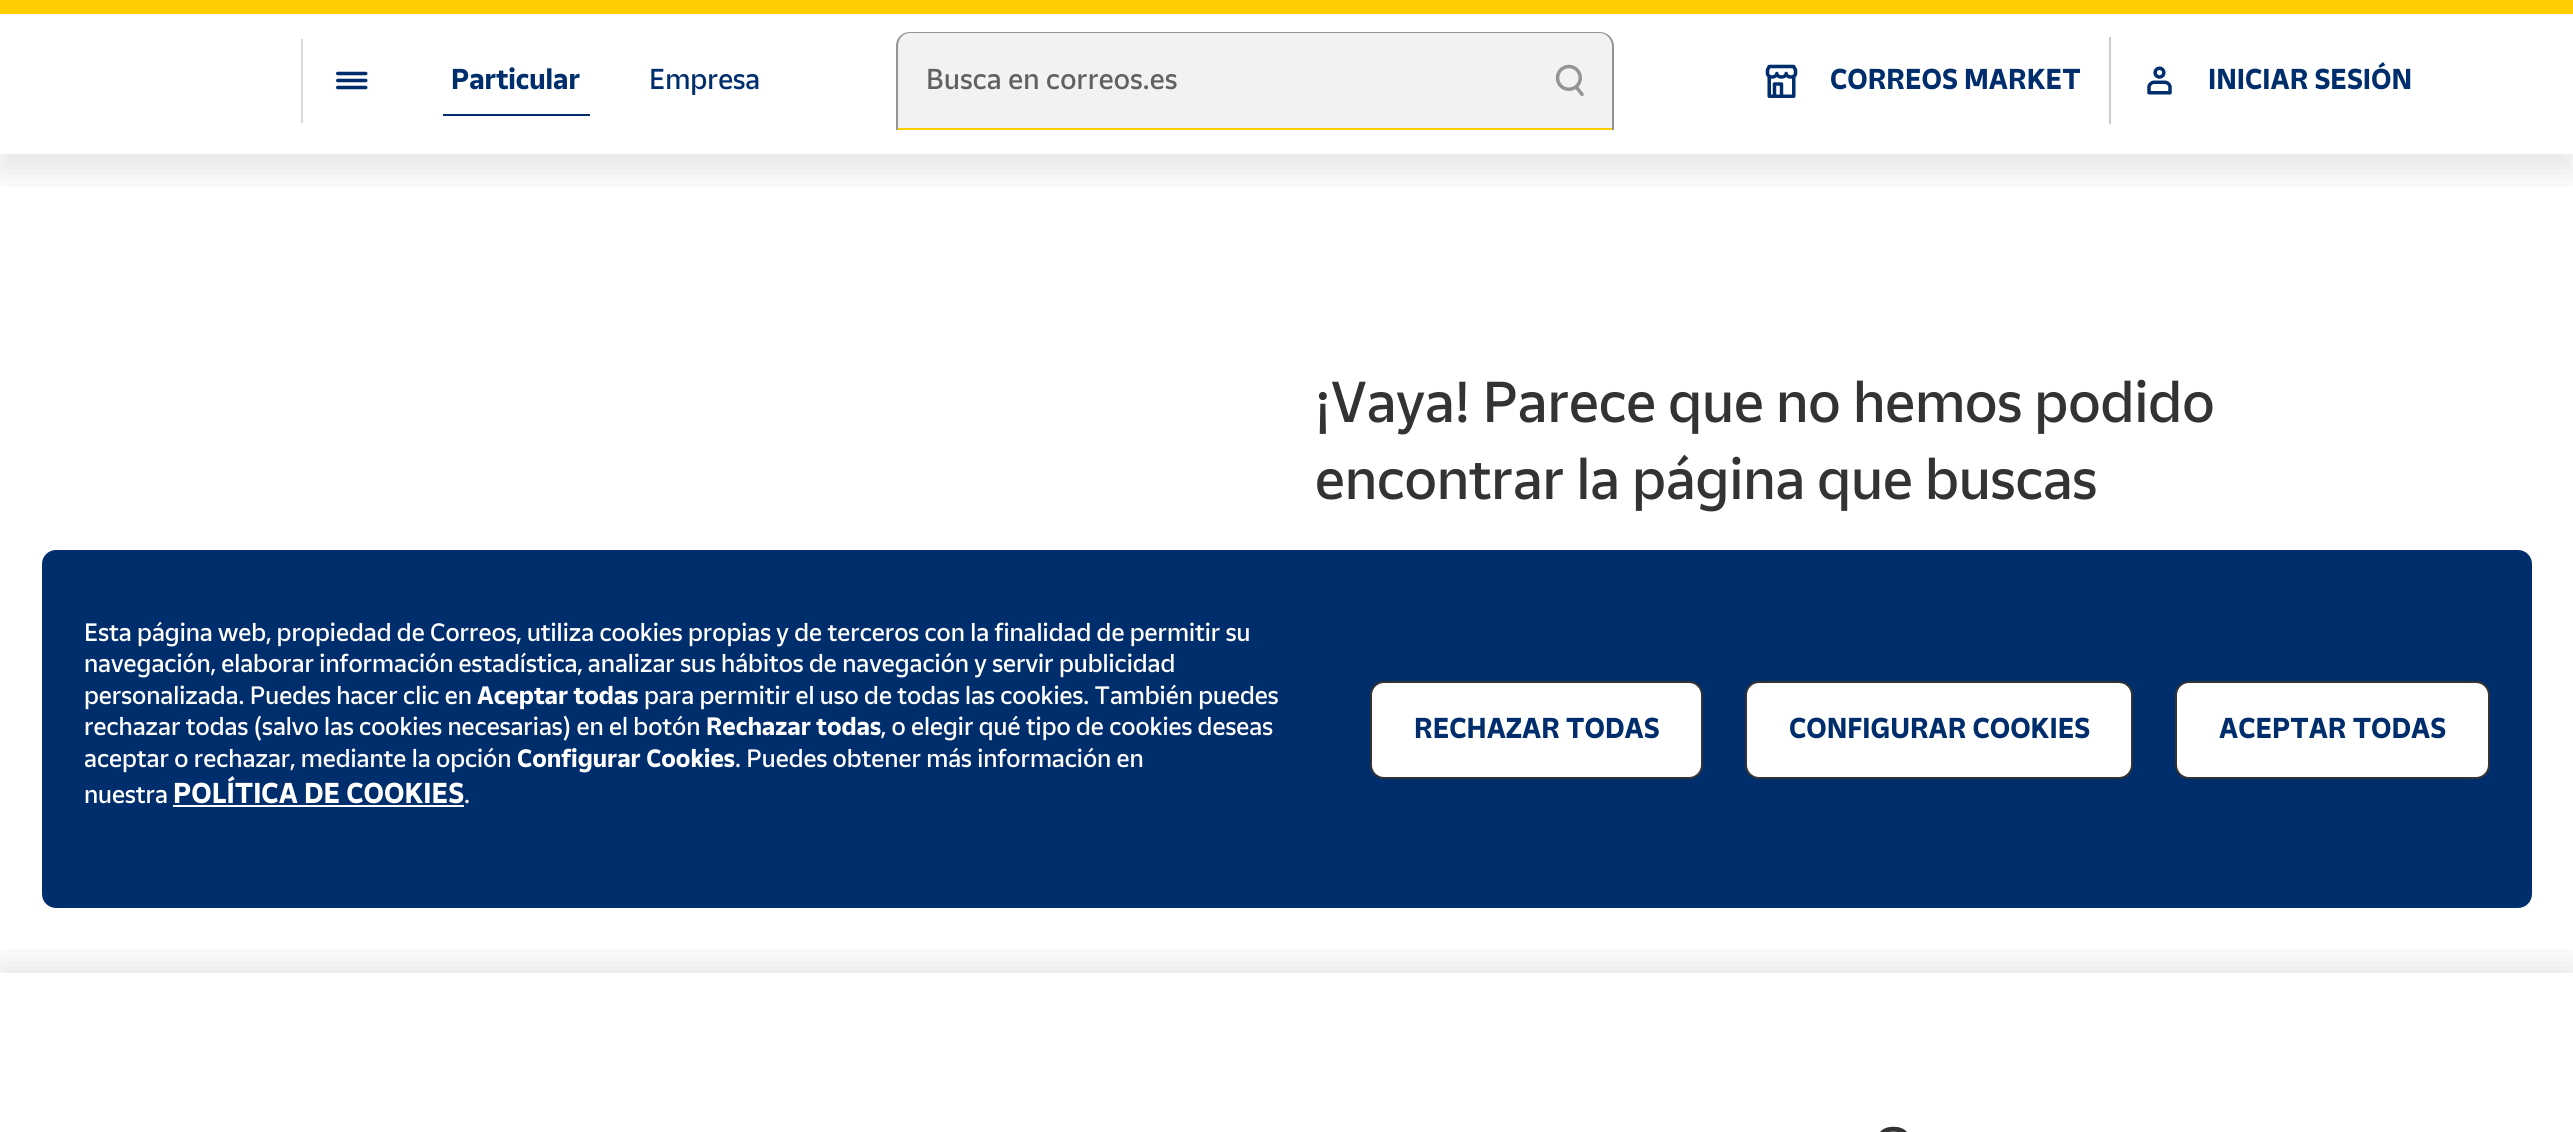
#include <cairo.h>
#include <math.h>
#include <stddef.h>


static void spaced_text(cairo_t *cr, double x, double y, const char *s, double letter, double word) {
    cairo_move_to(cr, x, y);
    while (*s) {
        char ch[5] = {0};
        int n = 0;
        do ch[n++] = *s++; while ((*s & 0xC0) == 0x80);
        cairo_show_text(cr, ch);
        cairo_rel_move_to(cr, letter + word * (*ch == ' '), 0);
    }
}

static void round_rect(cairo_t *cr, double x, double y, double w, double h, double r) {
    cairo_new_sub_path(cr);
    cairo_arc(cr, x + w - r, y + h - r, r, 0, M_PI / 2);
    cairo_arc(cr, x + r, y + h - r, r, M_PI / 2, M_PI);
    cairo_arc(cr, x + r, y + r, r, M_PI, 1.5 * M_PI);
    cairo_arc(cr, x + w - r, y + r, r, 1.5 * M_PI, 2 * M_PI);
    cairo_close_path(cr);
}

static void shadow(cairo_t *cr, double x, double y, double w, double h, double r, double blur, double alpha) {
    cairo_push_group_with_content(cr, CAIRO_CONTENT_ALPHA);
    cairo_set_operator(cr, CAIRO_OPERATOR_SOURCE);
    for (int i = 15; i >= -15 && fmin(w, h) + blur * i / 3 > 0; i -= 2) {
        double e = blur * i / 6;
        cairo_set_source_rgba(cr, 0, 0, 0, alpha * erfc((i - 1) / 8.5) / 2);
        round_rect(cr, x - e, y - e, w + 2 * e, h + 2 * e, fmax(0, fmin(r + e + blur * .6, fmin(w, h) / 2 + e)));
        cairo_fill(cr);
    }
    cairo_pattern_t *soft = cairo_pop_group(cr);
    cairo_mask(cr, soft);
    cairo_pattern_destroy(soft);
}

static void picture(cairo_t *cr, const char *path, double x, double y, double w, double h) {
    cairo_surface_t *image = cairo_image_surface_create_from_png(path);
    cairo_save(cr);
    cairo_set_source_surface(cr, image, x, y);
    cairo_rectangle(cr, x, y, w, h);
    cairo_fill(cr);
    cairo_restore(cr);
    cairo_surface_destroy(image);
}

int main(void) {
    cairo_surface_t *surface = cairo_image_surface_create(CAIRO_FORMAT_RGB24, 2573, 1132);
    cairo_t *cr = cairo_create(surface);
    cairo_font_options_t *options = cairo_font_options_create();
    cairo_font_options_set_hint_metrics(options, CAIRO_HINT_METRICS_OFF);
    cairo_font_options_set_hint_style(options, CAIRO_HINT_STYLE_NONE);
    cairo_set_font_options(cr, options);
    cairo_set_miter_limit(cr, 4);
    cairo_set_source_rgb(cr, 1, 1, 1);
    cairo_paint(cr);
    cairo_save(cr);
    cairo_rectangle(cr, 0, 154, 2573, 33);
    cairo_clip(cr);
    cairo_set_source_rgb(cr, 0, 0, 0);
    shadow(cr, 0, 18, 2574, 154, 0, 17.5, 0.1);
    cairo_restore(cr);
    cairo_set_source_rgb(cr, 1, 0.804, 0);
    cairo_rectangle(cr, 0, 0, 2573, 14);
    cairo_fill(cr);
    cairo_set_source_rgb(cr, 0.847, 0.847, 0.847);
    cairo_rectangle(cr, 301, 39, 2, 84);
    cairo_fill(cr);
    picture(cr, "img1.png", 336, 71, 32, 19);
    cairo_select_font_face(cr, "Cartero", CAIRO_FONT_SLANT_NORMAL, CAIRO_FONT_WEIGHT_BOLD);
    cairo_set_font_size(cr, 28);
    cairo_set_source_rgb(cr, 0, 0.18, 0.427);
    cairo_move_to(cr, 451, 89);
    cairo_show_text(cr, "Particular");
    cairo_rectangle(cr, 443, 114, 147, 2);
    cairo_fill(cr);
    cairo_select_font_face(cr, "Cartero", CAIRO_FONT_SLANT_NORMAL, CAIRO_FONT_WEIGHT_NORMAL);
    cairo_move_to(cr, 649, 89);
    cairo_show_text(cr, "Empresa");
    cairo_set_source_rgb(cr, 0.953, 0.949, 0.949);
    cairo_new_path(cr);
    cairo_move_to(cr, 910, 32);
    cairo_line_to(cr, 1600, 32);
    cairo_curve_to(cr, 1607.5, 32, 1614, 38.5, 1614, 46);
    cairo_line_to(cr, 1614, 130);
    cairo_line_to(cr, 896, 130);
    cairo_line_to(cr, 896, 46);
    cairo_curve_to(cr, 896, 38.5, 902.5, 32, 910, 32);
    cairo_close_path(cr);
    cairo_fill(cr);
    cairo_set_source_rgb(cr, 0.58, 0.58, 0.58);
    cairo_set_fill_rule(cr, CAIRO_FILL_RULE_EVEN_ODD);
    cairo_new_path(cr);
    cairo_move_to(cr, 910, 32);
    cairo_line_to(cr, 1600, 32);
    cairo_curve_to(cr, 1607, 32, 1614, 38, 1614, 46);
    cairo_line_to(cr, 1614, 130);
    cairo_line_to(cr, 896, 130);
    cairo_line_to(cr, 896, 46);
    cairo_curve_to(cr, 896, 38, 902, 32, 910, 32);
    cairo_close_path(cr);
    cairo_move_to(cr, 910, 33);
    cairo_line_to(cr, 1600, 33);
    cairo_curve_to(cr, 1606, 33, 1612, 39, 1612, 46);
    cairo_line_to(cr, 1612, 130);
    cairo_line_to(cr, 898, 130);
    cairo_line_to(cr, 898, 46);
    cairo_curve_to(cr, 898, 39, 903, 33, 910, 33);
    cairo_close_path(cr);
    cairo_fill(cr);
    cairo_set_source_rgb(cr, 0.38, 0.38, 0.38);
    spaced_text(cr, 926, 89, "Busca en correos.es", 0.25, 0);
    picture(cr, "img2.png", 1555, 64, 29, 33);
    cairo_set_source_rgb(cr, 1, 0.804, 0);
    cairo_rectangle(cr, 898, 128, 714, 2);
    cairo_fill(cr);
    cairo_set_source_rgb(cr, 0.796, 0.796, 0.796);
    cairo_rectangle(cr, 2109, 37, 2, 87);
    cairo_fill(cr);
    picture(cr, "img3.png", 1765, 64, 33, 34);
    cairo_select_font_face(cr, "Cartero", CAIRO_FONT_SLANT_NORMAL, CAIRO_FONT_WEIGHT_BOLD);
    cairo_set_source_rgb(cr, 0, 0.18, 0.427);
    cairo_move_to(cr, 1830, 89);
    cairo_show_text(cr, "CORREOS MARKET");
    picture(cr, "img4.png", 2147, 66, 25, 29);
    cairo_move_to(cr, 2208, 89);
    cairo_show_text(cr, "INICIAR SESIÓN");
    cairo_select_font_face(cr, "Cartero", CAIRO_FONT_SLANT_NORMAL, CAIRO_FONT_WEIGHT_NORMAL);
    cairo_set_font_size(cr, 56);
    cairo_set_source_rgb(cr, 0.2, 0.2, 0.2);
    cairo_move_to(cr, 1315, 422);
    cairo_show_text(cr, "¡Vaya! Parece que no hemos podido");
    cairo_move_to(cr, 1315, 499);
    cairo_show_text(cr, "encontrar la página que buscas");
    cairo_set_source_rgb(cr, 0, 0.18, 0.427);
    round_rect(cr, 42, 550, 2490, 358, 14);
    cairo_fill(cr);
    cairo_set_font_size(cr, 24.5);
    cairo_set_source_rgb(cr, 1, 1, 1);
    cairo_move_to(cr, 84, 641);
    cairo_show_text(cr, "Esta página web, propiedad de Correos, utiliza cookies propias y de terceros con la finalidad de permitir su");
    cairo_move_to(cr, 84, 672);
    cairo_show_text(cr, "navegación, elaborar información estadística, analizar sus hábitos de navegación y servir publicidad");
    cairo_move_to(cr, 84, 704);
    cairo_show_text(cr, "personalizada. Puedes hacer clic en");
    cairo_select_font_face(cr, "Cartero", CAIRO_FONT_SLANT_NORMAL, CAIRO_FONT_WEIGHT_BOLD);
    cairo_move_to(cr, 477, 704);
    cairo_show_text(cr, "Aceptar todas");
    cairo_select_font_face(cr, "Cartero", CAIRO_FONT_SLANT_NORMAL, CAIRO_FONT_WEIGHT_NORMAL);
    cairo_move_to(cr, 644, 704);
    cairo_show_text(cr, "para permitir el uso de todas las cookies. También puedes");
    cairo_move_to(cr, 84, 735);
    cairo_show_text(cr, "rechazar todas (salvo las cookies necesarias) en el botón");
    cairo_select_font_face(cr, "Cartero", CAIRO_FONT_SLANT_NORMAL, CAIRO_FONT_WEIGHT_BOLD);
    cairo_move_to(cr, 706, 735);
    cairo_show_text(cr, "Rechazar todas");
    cairo_select_font_face(cr, "Cartero", CAIRO_FONT_SLANT_NORMAL, CAIRO_FONT_WEIGHT_NORMAL);
    cairo_move_to(cr, 881, 735);
    cairo_show_text(cr, ", o elegir qué tipo de cookies deseas");
    cairo_move_to(cr, 84, 767);
    cairo_show_text(cr, "aceptar o rechazar, mediante la opción");
    cairo_select_font_face(cr, "Cartero", CAIRO_FONT_SLANT_NORMAL, CAIRO_FONT_WEIGHT_BOLD);
    cairo_move_to(cr, 517, 767);
    cairo_show_text(cr, "Configurar Cookies");
    cairo_select_font_face(cr, "Cartero", CAIRO_FONT_SLANT_NORMAL, CAIRO_FONT_WEIGHT_NORMAL);
    cairo_move_to(cr, 735, 767);
    cairo_show_text(cr, ". Puedes obtener más información en");
    cairo_move_to(cr, 84, 803);
    cairo_show_text(cr, "nuestra");
    cairo_select_font_face(cr, "Cartero", CAIRO_FONT_SLANT_NORMAL, CAIRO_FONT_WEIGHT_BOLD);
    cairo_set_font_size(cr, 28);
    cairo_move_to(cr, 173, 803);
    cairo_show_text(cr, "POLÍTICA DE COOKIES");
    cairo_rectangle(cr, 173, 805, 291, 2);
    cairo_fill(cr);
    cairo_select_font_face(cr, "Cartero", CAIRO_FONT_SLANT_NORMAL, CAIRO_FONT_WEIGHT_NORMAL);
    cairo_set_font_size(cr, 24.5);
    cairo_move_to(cr, 464, 803);
    cairo_show_text(cr, ".");
    round_rect(cr, 1371, 682, 331, 96, 13);
    cairo_fill_preserve(cr);
    cairo_set_source_rgb(cr, 0.2, 0.2, 0.2);
    cairo_stroke(cr);
    cairo_select_font_face(cr, "Cartero", CAIRO_FONT_SLANT_NORMAL, CAIRO_FONT_WEIGHT_BOLD);
    cairo_set_font_size(cr, 28);
    cairo_set_source_rgb(cr, 0, 0.18, 0.427);
    cairo_move_to(cr, 1414, 738);
    cairo_show_text(cr, "RECHAZAR TODAS");
    cairo_set_source_rgb(cr, 1, 1, 1);
    round_rect(cr, 1746, 682, 386, 96, 13);
    cairo_fill_preserve(cr);
    cairo_set_source_rgb(cr, 0.2, 0.2, 0.2);
    cairo_stroke(cr);
    cairo_set_source_rgb(cr, 0, 0.18, 0.427);
    cairo_move_to(cr, 1789, 738);
    cairo_show_text(cr, "CONFIGURAR COOKIES");
    cairo_set_source_rgb(cr, 1, 1, 1);
    round_rect(cr, 2176, 682, 313, 96, 13);
    cairo_fill_preserve(cr);
    cairo_set_source_rgb(cr, 0.2, 0.2, 0.2);
    cairo_stroke(cr);
    cairo_set_source_rgb(cr, 0, 0.18, 0.427);
    cairo_move_to(cr, 2219, 738);
    cairo_show_text(cr, "ACEPTAR TODAS");
    cairo_save(cr);
    cairo_set_fill_rule(cr, CAIRO_FILL_RULE_WINDING);
    cairo_rectangle(cr, 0, 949, 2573, 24);
    cairo_clip(cr);
    cairo_set_source_rgb(cr, 0, 0, 0);
    shadow(cr, 0, 964, 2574, 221, 0, 17.5, 0.1);
    cairo_restore(cr);
    picture(cr, "img5.png", 1880, 1126, 27, 6);
    cairo_surface_write_to_png(surface, "page.png");
    cairo_font_options_destroy(options);
    cairo_destroy(cr);
    cairo_surface_destroy(surface);
    return 0;
}
